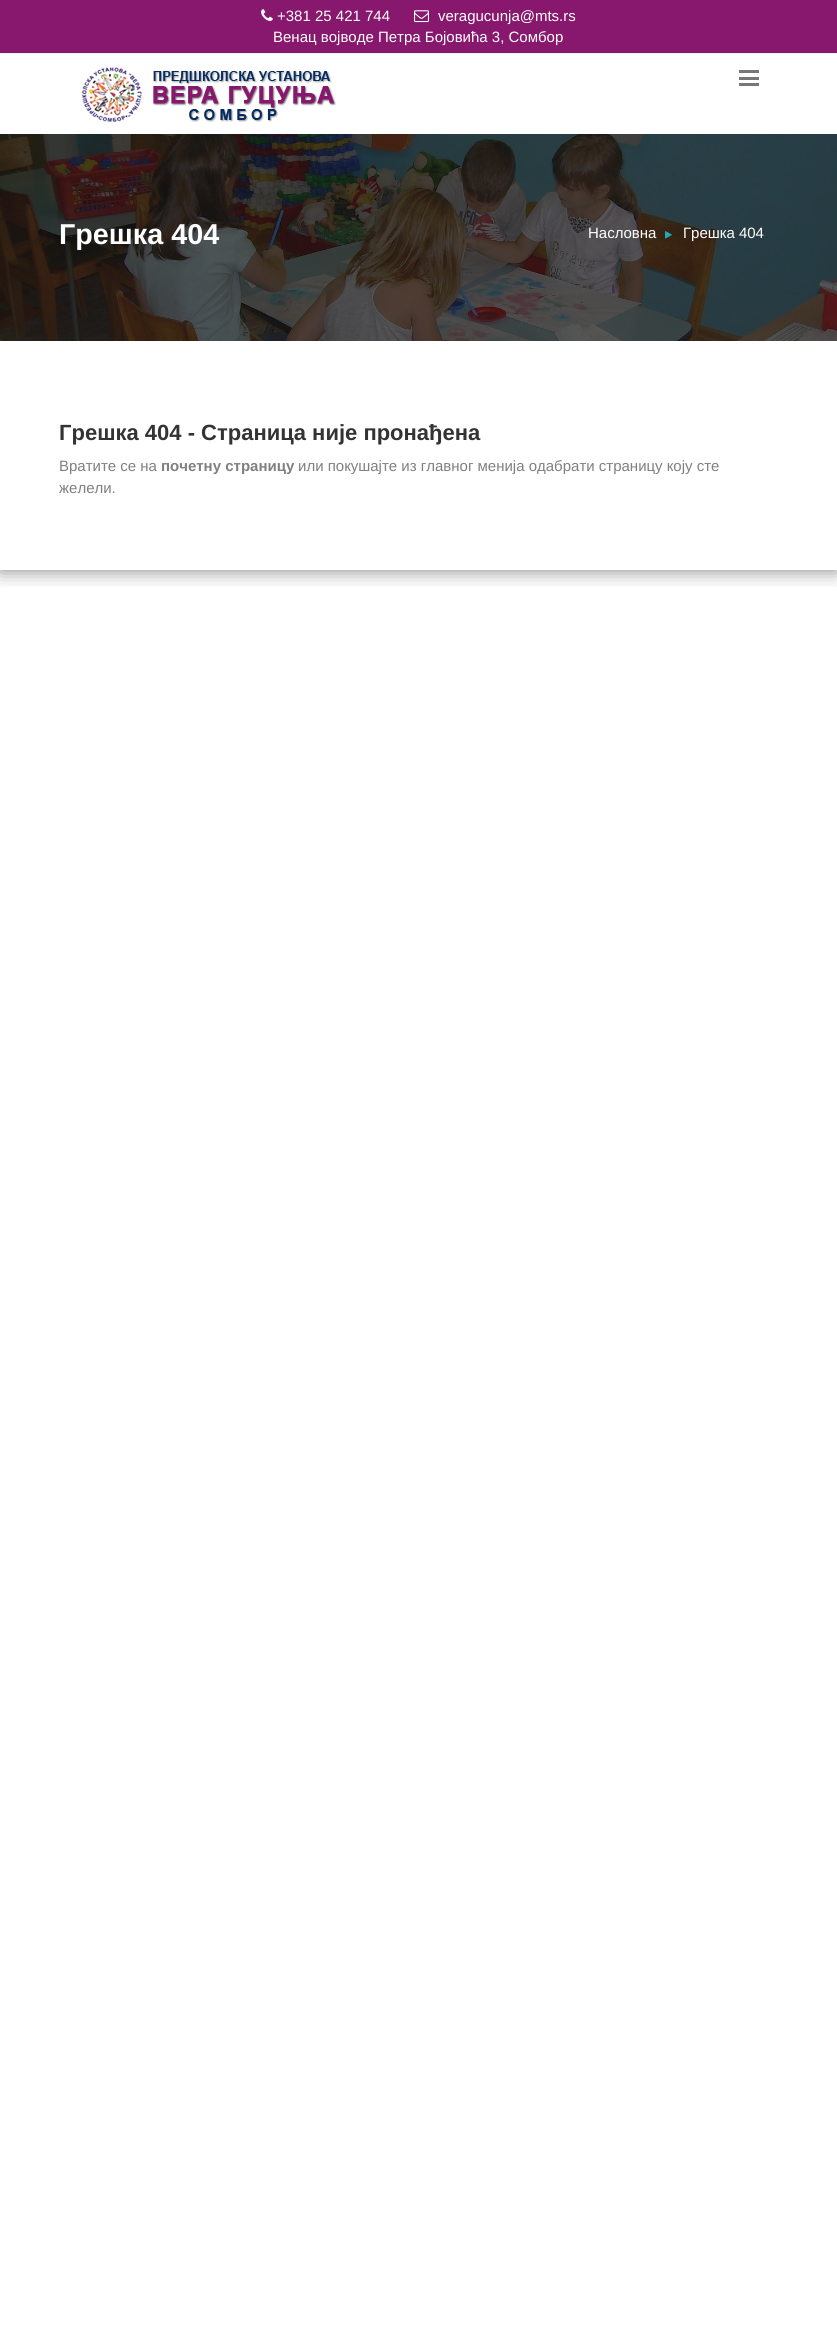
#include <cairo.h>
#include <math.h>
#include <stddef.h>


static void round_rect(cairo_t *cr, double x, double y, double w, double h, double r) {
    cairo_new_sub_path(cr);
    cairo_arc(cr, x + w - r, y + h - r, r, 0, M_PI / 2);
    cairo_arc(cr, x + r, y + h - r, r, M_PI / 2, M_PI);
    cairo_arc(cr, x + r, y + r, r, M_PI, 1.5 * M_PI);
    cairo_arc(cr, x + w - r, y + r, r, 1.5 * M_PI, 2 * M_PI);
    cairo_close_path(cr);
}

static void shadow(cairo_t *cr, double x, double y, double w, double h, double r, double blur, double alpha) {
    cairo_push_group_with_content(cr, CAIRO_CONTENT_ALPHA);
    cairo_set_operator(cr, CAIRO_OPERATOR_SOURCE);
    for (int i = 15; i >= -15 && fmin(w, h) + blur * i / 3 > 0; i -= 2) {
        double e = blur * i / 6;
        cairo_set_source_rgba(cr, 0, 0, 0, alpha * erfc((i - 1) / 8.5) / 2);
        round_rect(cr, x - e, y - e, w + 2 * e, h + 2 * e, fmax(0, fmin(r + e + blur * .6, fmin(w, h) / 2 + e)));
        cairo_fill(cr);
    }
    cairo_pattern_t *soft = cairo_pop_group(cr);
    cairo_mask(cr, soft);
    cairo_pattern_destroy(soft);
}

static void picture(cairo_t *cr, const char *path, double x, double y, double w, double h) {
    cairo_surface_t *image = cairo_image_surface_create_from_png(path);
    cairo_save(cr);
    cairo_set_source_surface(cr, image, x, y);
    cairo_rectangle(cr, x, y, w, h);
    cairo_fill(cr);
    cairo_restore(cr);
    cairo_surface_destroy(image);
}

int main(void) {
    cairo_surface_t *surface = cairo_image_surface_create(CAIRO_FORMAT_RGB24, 837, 2338);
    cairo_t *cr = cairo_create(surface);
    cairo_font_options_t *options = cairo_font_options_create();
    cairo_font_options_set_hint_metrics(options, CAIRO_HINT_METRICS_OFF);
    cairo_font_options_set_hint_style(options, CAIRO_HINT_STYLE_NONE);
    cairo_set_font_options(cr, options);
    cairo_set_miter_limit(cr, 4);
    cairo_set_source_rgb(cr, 1, 1, 1);
    cairo_paint(cr);
    cairo_save(cr);
    cairo_rectangle(cr, 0, 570, 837, 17);
    cairo_clip(cr);
    cairo_set_source_rgb(cr, 0, 0, 0);
    shadow(cr, 0, 0, 837, 570, 0, 10, 0.5);
    cairo_restore(cr);
    cairo_set_source_rgb(cr, 0.533, 0.094, 0.431);
    cairo_rectangle(cr, 0, 0, 837, 53);
    cairo_fill(cr);
    cairo_set_source_rgb(cr, 0.933, 0.933, 0.933);
    cairo_rectangle(cr, 0, 53, 837, 1);
    cairo_fill(cr);
    picture(cr, "img1.png", 261, 9, 12, 12);
    cairo_select_font_face(cr, "Liberation Sans", CAIRO_FONT_SLANT_NORMAL, CAIRO_FONT_WEIGHT_NORMAL);
    cairo_set_font_size(cr, 15);
    cairo_set_source_rgb(cr, 1, 1, 1);
    cairo_move_to(cr, 277, 21);
    cairo_show_text(cr, "+381 25 421 744");
    picture(cr, "img2.png", 414, 10, 15, 13);
    cairo_move_to(cr, 438, 21);
    cairo_show_text(cr, "veragucunja@mts.rs");
    cairo_move_to(cr, 273, 42);
    cairo_show_text(cr, "Венац војводе Петра Бојовића 3, Сомбор");
    picture(cr, "img3.png", 81, 67, 255, 55);
    cairo_set_source_rgb(cr, 0.467, 0.467, 0.467);
    cairo_rectangle(cr, 739, 70, 20, 3);
    cairo_fill(cr);
    cairo_rectangle(cr, 739, 77, 20, 3);
    cairo_fill(cr);
    cairo_rectangle(cr, 739, 83, 20, 3);
    cairo_fill(cr);
    picture(cr, "img4.png", 0, 134, 837, 207);
    cairo_select_font_face(cr, "Liberation Sans", CAIRO_FONT_SLANT_NORMAL, CAIRO_FONT_WEIGHT_BOLD);
    cairo_set_font_size(cr, 28.75);
    cairo_set_source_rgb(cr, 1, 1, 1);
    cairo_move_to(cr, 59, 244);
    cairo_show_text(cr, "Грешка 404");
    cairo_select_font_face(cr, "Liberation Sans", CAIRO_FONT_SLANT_NORMAL, CAIRO_FONT_WEIGHT_NORMAL);
    cairo_set_font_size(cr, 15);
    cairo_move_to(cr, 588, 238);
    cairo_show_text(cr, "Насловна");
    picture(cr, "img5.png", 665, 231, 7, 8);
    cairo_move_to(cr, 683, 238);
    cairo_show_text(cr, "Грешка 404");
    cairo_select_font_face(cr, "Liberation Sans", CAIRO_FONT_SLANT_NORMAL, CAIRO_FONT_WEIGHT_BOLD);
    cairo_set_font_size(cr, 22);
    cairo_set_source_rgb(cr, 0.2, 0.2, 0.2);
    cairo_move_to(cr, 59, 440);
    cairo_show_text(cr, "Грешка 404 - Страница није пронађена");
    cairo_select_font_face(cr, "Liberation Sans", CAIRO_FONT_SLANT_NORMAL, CAIRO_FONT_WEIGHT_NORMAL);
    cairo_set_font_size(cr, 15);
    cairo_set_source_rgb(cr, 0.502, 0.502, 0.502);
    cairo_move_to(cr, 59, 471);
    cairo_show_text(cr, "Вратите се на");
    cairo_select_font_face(cr, "Liberation Sans", CAIRO_FONT_SLANT_NORMAL, CAIRO_FONT_WEIGHT_BOLD);
    cairo_move_to(cr, 161, 471);
    cairo_show_text(cr, "почетну страницу");
    cairo_select_font_face(cr, "Liberation Sans", CAIRO_FONT_SLANT_NORMAL, CAIRO_FONT_WEIGHT_NORMAL);
    cairo_move_to(cr, 298, 471);
    cairo_show_text(cr, "или покушајте из главног менија одабрати страницу коју сте");
    cairo_move_to(cr, 59, 493);
    cairo_show_text(cr, "желели.");
    cairo_surface_write_to_png(surface, "page.png");
    cairo_font_options_destroy(options);
    cairo_destroy(cr);
    cairo_surface_destroy(surface);
    return 0;
}
